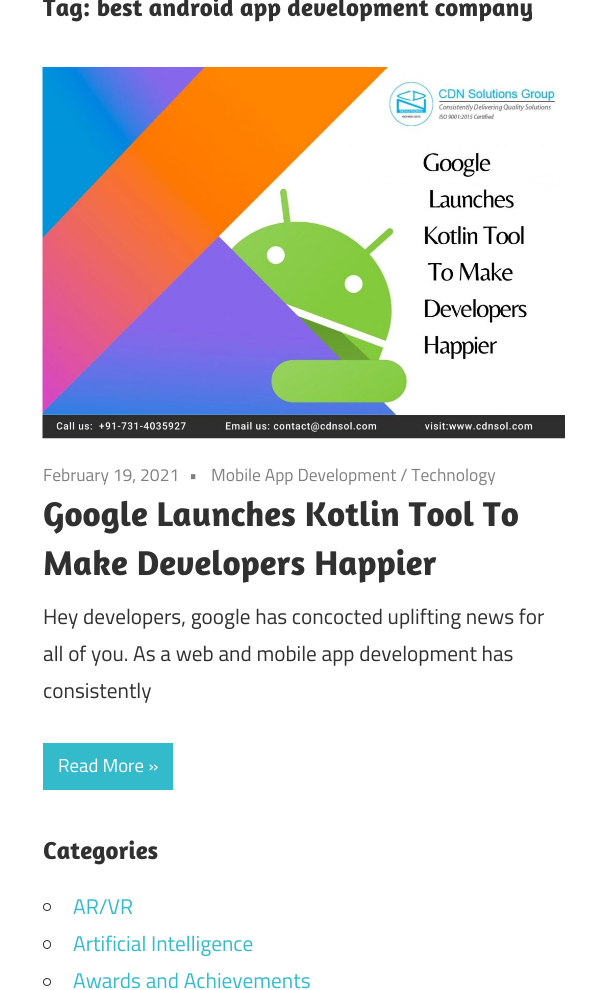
#include <cairo.h>
#include <math.h>
#include <stddef.h>


static void round_rect(cairo_t *cr, double x, double y, double w, double h, double r) {
    cairo_new_sub_path(cr);
    cairo_arc(cr, x + w - r, y + h - r, r, 0, M_PI / 2);
    cairo_arc(cr, x + r, y + h - r, r, M_PI / 2, M_PI);
    cairo_arc(cr, x + r, y + r, r, M_PI, 1.5 * M_PI);
    cairo_arc(cr, x + w - r, y + r, r, 1.5 * M_PI, 2 * M_PI);
    cairo_close_path(cr);
}

static void picture(cairo_t *cr, const char *path, double x, double y, double w, double h) {
    cairo_surface_t *image = cairo_image_surface_create_from_png(path);
    cairo_save(cr);
    cairo_set_source_surface(cr, image, x, y);
    cairo_rectangle(cr, x, y, w, h);
    cairo_fill(cr);
    cairo_restore(cr);
    cairo_surface_destroy(image);
}

int main(void) {
    cairo_surface_t *surface = cairo_image_surface_create(CAIRO_FORMAT_RGB24, 607, 990);
    cairo_t *cr = cairo_create(surface);
    cairo_font_options_t *options = cairo_font_options_create();
    cairo_font_options_set_hint_metrics(options, CAIRO_HINT_METRICS_OFF);
    cairo_font_options_set_hint_style(options, CAIRO_HINT_STYLE_NONE);
    cairo_set_font_options(cr, options);
    cairo_set_miter_limit(cr, 4);
    cairo_set_source_rgb(cr, 1, 1, 1);
    cairo_paint(cr);
    cairo_select_font_face(cr, "Amaranth", CAIRO_FONT_SLANT_NORMAL, CAIRO_FONT_WEIGHT_BOLD);
    cairo_set_font_size(cr, 25);
    cairo_set_source_rgb(cr, 0.188, 0.188, 0.188);
    cairo_move_to(cr, 43, 16);
    cairo_show_text(cr, "Tag: best android app development company");
    picture(cr, "img1.png", 42, 67, 523, 372);
    cairo_select_font_face(cr, "Titillium Web", CAIRO_FONT_SLANT_NORMAL, CAIRO_FONT_WEIGHT_NORMAL);
    cairo_set_font_size(cr, 17.5);
    cairo_set_source_rgb(cr, 0.502, 0.502, 0.502);
    cairo_move_to(cr, 43, 481);
    cairo_show_text(cr, "February 19, 2021");
    cairo_move_to(cr, 189, 481);
    cairo_show_text(cr, "•");
    cairo_move_to(cr, 211, 481);
    cairo_show_text(cr, "Mobile App Development / Technology");
    cairo_select_font_face(cr, "Amaranth", CAIRO_FONT_SLANT_NORMAL, CAIRO_FONT_WEIGHT_BOLD);
    cairo_set_font_size(cr, 35);
    cairo_set_source_rgb(cr, 0.188, 0.188, 0.188);
    cairo_move_to(cr, 43, 526);
    cairo_show_text(cr, "Google Launches Kotlin Tool To");
    cairo_move_to(cr, 43, 575);
    cairo_show_text(cr, "Make Developers Happier");
    cairo_select_font_face(cr, "Titillium Web", CAIRO_FONT_SLANT_NORMAL, CAIRO_FONT_WEIGHT_NORMAL);
    cairo_set_font_size(cr, 21.25);
    cairo_move_to(cr, 43, 624);
    cairo_show_text(cr, "Hey developers, google has concocted uplifting news for");
    cairo_move_to(cr, 43, 661);
    cairo_show_text(cr, "all of you. As a web and mobile app development has");
    cairo_move_to(cr, 43, 698);
    cairo_show_text(cr, "consistently");
    cairo_set_source_rgb(cr, 0.2, 0.733, 0.8);
    cairo_rectangle(cr, 43, 743, 130, 47);
    cairo_fill(cr);
    cairo_set_font_size(cr, 18.75);
    cairo_set_source_rgb(cr, 1, 1, 1);
    cairo_move_to(cr, 58, 772);
    cairo_show_text(cr, "Read More »");
    cairo_select_font_face(cr, "Amaranth", CAIRO_FONT_SLANT_NORMAL, CAIRO_FONT_WEIGHT_BOLD);
    cairo_set_font_size(cr, 25);
    cairo_set_source_rgb(cr, 0.188, 0.188, 0.188);
    cairo_move_to(cr, 43, 859);
    cairo_show_text(cr, "Categories");
    cairo_new_path(cr);
    cairo_arc(cr, 47, 907, 3.5, 0, 2 * M_PI);
    cairo_set_line_width(cr, 1);
    cairo_stroke(cr);
    cairo_select_font_face(cr, "Titillium Web", CAIRO_FONT_SLANT_NORMAL, CAIRO_FONT_WEIGHT_NORMAL);
    cairo_set_font_size(cr, 21.25);
    cairo_set_source_rgb(cr, 0.2, 0.733, 0.8);
    cairo_move_to(cr, 73, 914);
    cairo_show_text(cr, "AR/VR");
    round_rect(cr, 43.5, 940.5, 7, 8, 3.5);
    cairo_set_source_rgb(cr, 0.188, 0.188, 0.188);
    cairo_stroke(cr);
    cairo_set_source_rgb(cr, 0.2, 0.733, 0.8);
    cairo_move_to(cr, 73, 951);
    cairo_show_text(cr, "Artificial Intelligence");
    cairo_new_path(cr);
    cairo_arc(cr, 47, 982, 3.5, 0, 2 * M_PI);
    cairo_set_source_rgb(cr, 0.188, 0.188, 0.188);
    cairo_stroke(cr);
    cairo_set_source_rgb(cr, 0.2, 0.733, 0.8);
    cairo_move_to(cr, 73, 988);
    cairo_show_text(cr, "Awards and Achievements");
    cairo_surface_write_to_png(surface, "page.png");
    cairo_font_options_destroy(options);
    cairo_destroy(cr);
    cairo_surface_destroy(surface);
    return 0;
}
